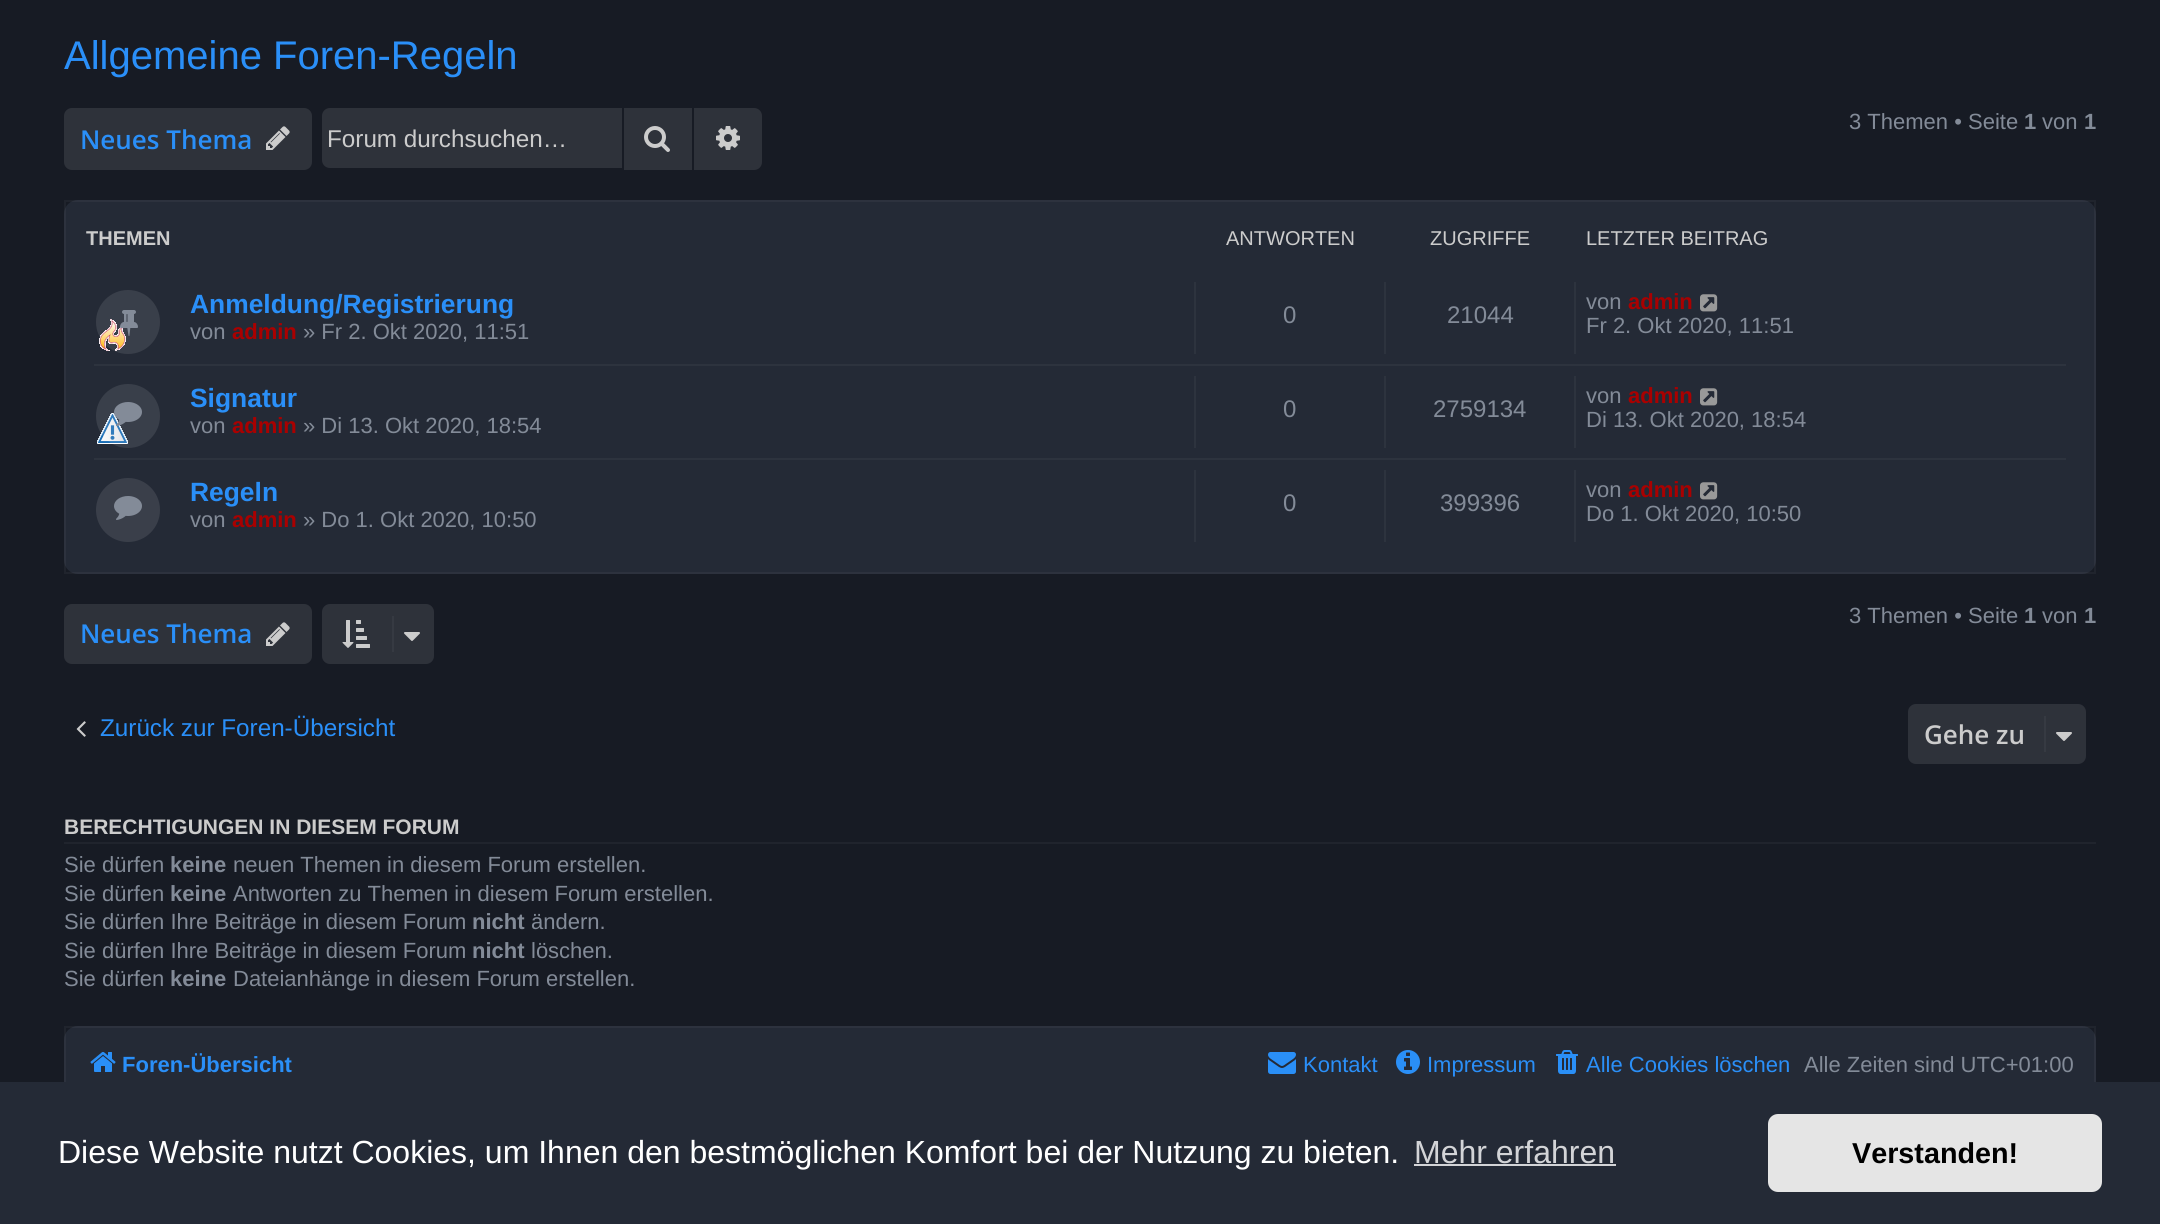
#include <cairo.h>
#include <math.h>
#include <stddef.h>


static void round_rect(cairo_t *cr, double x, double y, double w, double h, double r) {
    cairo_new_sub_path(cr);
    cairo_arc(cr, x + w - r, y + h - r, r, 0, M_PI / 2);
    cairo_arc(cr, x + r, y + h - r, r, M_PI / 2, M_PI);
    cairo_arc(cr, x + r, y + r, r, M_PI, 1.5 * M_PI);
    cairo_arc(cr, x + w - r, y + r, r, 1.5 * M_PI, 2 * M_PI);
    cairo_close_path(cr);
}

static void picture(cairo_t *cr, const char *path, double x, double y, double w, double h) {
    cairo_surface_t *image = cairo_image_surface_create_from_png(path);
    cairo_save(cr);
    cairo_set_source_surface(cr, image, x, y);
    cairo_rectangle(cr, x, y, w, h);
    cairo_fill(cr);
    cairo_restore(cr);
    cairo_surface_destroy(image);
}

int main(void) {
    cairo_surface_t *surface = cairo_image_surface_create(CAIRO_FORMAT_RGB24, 2160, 1224);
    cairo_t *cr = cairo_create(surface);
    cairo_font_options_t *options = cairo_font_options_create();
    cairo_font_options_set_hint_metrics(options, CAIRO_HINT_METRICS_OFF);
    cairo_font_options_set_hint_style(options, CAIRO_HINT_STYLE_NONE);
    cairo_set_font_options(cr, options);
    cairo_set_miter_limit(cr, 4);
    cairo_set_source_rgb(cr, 0.09, 0.106, 0.141);
    cairo_paint(cr);
    cairo_select_font_face(cr, "Liberation Sans", CAIRO_FONT_SLANT_NORMAL, CAIRO_FONT_WEIGHT_NORMAL);
    cairo_set_font_size(cr, 40);
    cairo_set_source_rgb(cr, 0.165, 0.561, 0.969);
    cairo_move_to(cr, 64, 69);
    cairo_show_text(cr, "Allgemeine Foren-Regeln");
    cairo_set_font_size(cr, 22);
    cairo_set_source_rgb(cr, 0.514, 0.545, 0.596);
    cairo_move_to(cr, 1849, 129);
    cairo_show_text(cr, "3 Themen • Seite");
    cairo_select_font_face(cr, "Liberation Sans", CAIRO_FONT_SLANT_NORMAL, CAIRO_FONT_WEIGHT_BOLD);
    cairo_move_to(cr, 2024, 129);
    cairo_show_text(cr, "1");
    cairo_select_font_face(cr, "Liberation Sans", CAIRO_FONT_SLANT_NORMAL, CAIRO_FONT_WEIGHT_NORMAL);
    cairo_move_to(cr, 2042, 129);
    cairo_show_text(cr, "von");
    cairo_select_font_face(cr, "Liberation Sans", CAIRO_FONT_SLANT_NORMAL, CAIRO_FONT_WEIGHT_BOLD);
    cairo_move_to(cr, 2084, 129);
    cairo_show_text(cr, "1");
    cairo_set_source_rgb(cr, 0.18, 0.196, 0.227);
    round_rect(cr, 64, 108, 248, 62, 8);
    cairo_fill(cr);
    cairo_select_font_face(cr, "Open Sans SemiBold", CAIRO_FONT_SLANT_NORMAL, CAIRO_FONT_WEIGHT_NORMAL);
    cairo_set_font_size(cr, 26);
    cairo_set_source_rgb(cr, 0.165, 0.561, 0.969);
    cairo_move_to(cr, 80, 149);
    cairo_show_text(cr, "Neues Thema");
    picture(cr, "img1.png", 266, 126, 24, 24);
    cairo_set_source_rgb(cr, 0.18, 0.196, 0.227);
    cairo_new_path(cr);
    cairo_move_to(cr, 330, 108);
    cairo_line_to(cr, 622, 108);
    cairo_line_to(cr, 622, 168);
    cairo_line_to(cr, 330, 168);
    cairo_curve_to(cr, 325.5, 168, 322, 164.5, 322, 160);
    cairo_line_to(cr, 322, 116);
    cairo_curve_to(cr, 322, 111.5, 325.5, 108, 330, 108);
    cairo_close_path(cr);
    cairo_fill(cr);
    cairo_select_font_face(cr, "Liberation Sans", CAIRO_FONT_SLANT_NORMAL, CAIRO_FONT_WEIGHT_NORMAL);
    cairo_set_font_size(cr, 24.25);
    cairo_set_source_rgb(cr, 0.8, 0.8, 0.8);
    cairo_move_to(cr, 327, 147);
    cairo_show_text(cr, "Forum durchsuchen…");
    cairo_set_source_rgb(cr, 0.18, 0.196, 0.227);
    cairo_rectangle(cr, 624, 108, 68, 62);
    cairo_fill(cr);
    picture(cr, "img2.png", 644, 126, 26, 26);
    cairo_new_path(cr);
    cairo_move_to(cr, 694, 108);
    cairo_line_to(cr, 754, 108);
    cairo_curve_to(cr, 758.5, 108, 762, 111.5, 762, 116);
    cairo_line_to(cr, 762, 162);
    cairo_curve_to(cr, 762, 166.5, 758.5, 170, 754, 170);
    cairo_line_to(cr, 694, 170);
    cairo_close_path(cr);
    cairo_fill(cr);
    picture(cr, "img3.png", 716, 126, 24, 24);
    cairo_set_source_rgb(cr, 0.141, 0.165, 0.212);
    round_rect(cr, 64, 200, 2032, 374, 14);
    cairo_fill(cr);
    cairo_rectangle(cr, 65, 201, 2030, 372);
    cairo_set_source_rgba(cr, 1, 1, 1, 0.04);
    cairo_stroke(cr);
    cairo_select_font_face(cr, "Liberation Sans", CAIRO_FONT_SLANT_NORMAL, CAIRO_FONT_WEIGHT_BOLD);
    cairo_set_font_size(cr, 20);
    cairo_set_source_rgb(cr, 0.8, 0.8, 0.8);
    cairo_move_to(cr, 86, 245);
    cairo_show_text(cr, "THEMEN");
    cairo_select_font_face(cr, "Liberation Sans", CAIRO_FONT_SLANT_NORMAL, CAIRO_FONT_WEIGHT_NORMAL);
    cairo_move_to(cr, 1226, 245);
    cairo_show_text(cr, "ANTWORTEN");
    cairo_move_to(cr, 1430, 245);
    cairo_show_text(cr, "ZUGRIFFE");
    cairo_move_to(cr, 1586, 245);
    cairo_show_text(cr, "LETZTER BEITRAG");
    cairo_set_source_rgb(cr, 0.176, 0.2, 0.243);
    cairo_rectangle(cr, 94, 364, 1972, 2);
    cairo_fill(cr);
    picture(cr, "img5.png", 99, 319, 27, 32);
    cairo_set_source_rgba(cr, 1, 1, 1, 0.1);
    cairo_arc(cr, 128, 322, 32, 0, 2 * M_PI);
    cairo_fill(cr);
    picture(cr, "img4.png", 120, 310, 18, 26);
    cairo_select_font_face(cr, "Liberation Sans", CAIRO_FONT_SLANT_NORMAL, CAIRO_FONT_WEIGHT_BOLD);
    cairo_set_font_size(cr, 26.4);
    cairo_set_source_rgb(cr, 0.165, 0.561, 0.969);
    cairo_move_to(cr, 190, 313);
    cairo_show_text(cr, "Anmeldung/Registrierung");
    cairo_select_font_face(cr, "Liberation Sans", CAIRO_FONT_SLANT_NORMAL, CAIRO_FONT_WEIGHT_NORMAL);
    cairo_set_font_size(cr, 22);
    cairo_set_source_rgb(cr, 0.514, 0.545, 0.596);
    cairo_move_to(cr, 190, 339);
    cairo_show_text(cr, "von");
    cairo_select_font_face(cr, "Liberation Sans", CAIRO_FONT_SLANT_NORMAL, CAIRO_FONT_WEIGHT_BOLD);
    cairo_set_source_rgb(cr, 0.667, 0, 0);
    cairo_move_to(cr, 232, 339);
    cairo_show_text(cr, "admin");
    cairo_select_font_face(cr, "Liberation Sans", CAIRO_FONT_SLANT_NORMAL, CAIRO_FONT_WEIGHT_NORMAL);
    cairo_set_source_rgb(cr, 0.514, 0.545, 0.596);
    cairo_move_to(cr, 303, 339);
    cairo_show_text(cr, "» Fr 2. Okt 2020, 11:51");
    cairo_set_source_rgb(cr, 0.176, 0.2, 0.243);
    cairo_rectangle(cr, 1194, 282, 2, 72);
    cairo_fill(cr);
    cairo_set_font_size(cr, 24);
    cairo_set_source_rgb(cr, 0.514, 0.545, 0.596);
    cairo_move_to(cr, 1283, 323);
    cairo_show_text(cr, "0");
    cairo_set_source_rgb(cr, 0.176, 0.2, 0.243);
    cairo_rectangle(cr, 1384, 282, 2, 72);
    cairo_fill(cr);
    cairo_set_source_rgb(cr, 0.514, 0.545, 0.596);
    cairo_move_to(cr, 1447, 323);
    cairo_show_text(cr, "21044");
    cairo_set_source_rgb(cr, 0.176, 0.2, 0.243);
    cairo_rectangle(cr, 1574, 282, 2, 72);
    cairo_fill(cr);
    cairo_set_font_size(cr, 22);
    cairo_set_source_rgb(cr, 0.514, 0.545, 0.596);
    cairo_move_to(cr, 1586, 309);
    cairo_show_text(cr, "von");
    cairo_select_font_face(cr, "Liberation Sans", CAIRO_FONT_SLANT_NORMAL, CAIRO_FONT_WEIGHT_BOLD);
    cairo_set_source_rgb(cr, 0.667, 0, 0);
    cairo_move_to(cr, 1628, 309);
    cairo_show_text(cr, "admin");
    picture(cr, "img6.png", 1700, 294, 18, 18);
    cairo_select_font_face(cr, "Liberation Sans", CAIRO_FONT_SLANT_NORMAL, CAIRO_FONT_WEIGHT_NORMAL);
    cairo_set_source_rgb(cr, 0.514, 0.545, 0.596);
    cairo_move_to(cr, 1586, 333);
    cairo_show_text(cr, "Fr 2. Okt 2020, 11:51");
    cairo_set_source_rgb(cr, 0.176, 0.2, 0.243);
    cairo_rectangle(cr, 94, 458, 1972, 2);
    cairo_fill(cr);
    picture(cr, "img8.png", 97, 413, 31, 31);
    cairo_set_source_rgba(cr, 1, 1, 1, 0.1);
    cairo_arc(cr, 128, 416, 32, 0, 2 * M_PI);
    cairo_fill(cr);
    picture(cr, "img7.png", 114, 402, 28, 24);
    cairo_select_font_face(cr, "Liberation Sans", CAIRO_FONT_SLANT_NORMAL, CAIRO_FONT_WEIGHT_BOLD);
    cairo_set_font_size(cr, 26.4);
    cairo_set_source_rgb(cr, 0.165, 0.561, 0.969);
    cairo_move_to(cr, 190, 407);
    cairo_show_text(cr, "Signatur");
    cairo_select_font_face(cr, "Liberation Sans", CAIRO_FONT_SLANT_NORMAL, CAIRO_FONT_WEIGHT_NORMAL);
    cairo_set_font_size(cr, 22);
    cairo_set_source_rgb(cr, 0.514, 0.545, 0.596);
    cairo_move_to(cr, 190, 433);
    cairo_show_text(cr, "von");
    cairo_select_font_face(cr, "Liberation Sans", CAIRO_FONT_SLANT_NORMAL, CAIRO_FONT_WEIGHT_BOLD);
    cairo_set_source_rgb(cr, 0.667, 0, 0);
    cairo_move_to(cr, 232, 433);
    cairo_show_text(cr, "admin");
    cairo_select_font_face(cr, "Liberation Sans", CAIRO_FONT_SLANT_NORMAL, CAIRO_FONT_WEIGHT_NORMAL);
    cairo_set_source_rgb(cr, 0.514, 0.545, 0.596);
    cairo_move_to(cr, 303, 433);
    cairo_show_text(cr, "» Di 13. Okt 2020, 18:54");
    cairo_set_source_rgb(cr, 0.176, 0.2, 0.243);
    cairo_rectangle(cr, 1194, 376, 2, 72);
    cairo_fill(cr);
    cairo_set_font_size(cr, 24);
    cairo_set_source_rgb(cr, 0.514, 0.545, 0.596);
    cairo_move_to(cr, 1283, 417);
    cairo_show_text(cr, "0");
    cairo_set_source_rgb(cr, 0.176, 0.2, 0.243);
    cairo_rectangle(cr, 1384, 376, 2, 72);
    cairo_fill(cr);
    cairo_set_source_rgb(cr, 0.514, 0.545, 0.596);
    cairo_move_to(cr, 1433, 417);
    cairo_show_text(cr, "2759134");
    cairo_set_source_rgb(cr, 0.176, 0.2, 0.243);
    cairo_rectangle(cr, 1574, 376, 2, 72);
    cairo_fill(cr);
    cairo_set_font_size(cr, 22);
    cairo_set_source_rgb(cr, 0.514, 0.545, 0.596);
    cairo_move_to(cr, 1586, 403);
    cairo_show_text(cr, "von");
    cairo_select_font_face(cr, "Liberation Sans", CAIRO_FONT_SLANT_NORMAL, CAIRO_FONT_WEIGHT_BOLD);
    cairo_set_source_rgb(cr, 0.667, 0, 0);
    cairo_move_to(cr, 1628, 403);
    cairo_show_text(cr, "admin");
    picture(cr, "img6.png", 1700, 388, 18, 18);
    cairo_select_font_face(cr, "Liberation Sans", CAIRO_FONT_SLANT_NORMAL, CAIRO_FONT_WEIGHT_NORMAL);
    cairo_set_source_rgb(cr, 0.514, 0.545, 0.596);
    cairo_move_to(cr, 1586, 427);
    cairo_show_text(cr, "Di 13. Okt 2020, 18:54");
    cairo_set_source_rgb(cr, 0.227, 0.247, 0.29);
    cairo_new_path(cr);
    cairo_arc(cr, 128, 510, 32, 0, 2 * M_PI);
    cairo_fill(cr);
    picture(cr, "img9.png", 114, 496, 28, 24);
    cairo_select_font_face(cr, "Liberation Sans", CAIRO_FONT_SLANT_NORMAL, CAIRO_FONT_WEIGHT_BOLD);
    cairo_set_font_size(cr, 26.4);
    cairo_set_source_rgb(cr, 0.165, 0.561, 0.969);
    cairo_move_to(cr, 190, 501);
    cairo_show_text(cr, "Regeln");
    cairo_select_font_face(cr, "Liberation Sans", CAIRO_FONT_SLANT_NORMAL, CAIRO_FONT_WEIGHT_NORMAL);
    cairo_set_font_size(cr, 22);
    cairo_set_source_rgb(cr, 0.514, 0.545, 0.596);
    cairo_move_to(cr, 190, 527);
    cairo_show_text(cr, "von");
    cairo_select_font_face(cr, "Liberation Sans", CAIRO_FONT_SLANT_NORMAL, CAIRO_FONT_WEIGHT_BOLD);
    cairo_set_source_rgb(cr, 0.667, 0, 0);
    cairo_move_to(cr, 232, 527);
    cairo_show_text(cr, "admin");
    cairo_select_font_face(cr, "Liberation Sans", CAIRO_FONT_SLANT_NORMAL, CAIRO_FONT_WEIGHT_NORMAL);
    cairo_set_source_rgb(cr, 0.514, 0.545, 0.596);
    cairo_move_to(cr, 303, 527);
    cairo_show_text(cr, "» Do 1. Okt 2020, 10:50");
    cairo_set_source_rgb(cr, 0.176, 0.2, 0.243);
    cairo_rectangle(cr, 1194, 470, 2, 72);
    cairo_fill(cr);
    cairo_set_font_size(cr, 24);
    cairo_set_source_rgb(cr, 0.514, 0.545, 0.596);
    cairo_move_to(cr, 1283, 511);
    cairo_show_text(cr, "0");
    cairo_set_source_rgb(cr, 0.176, 0.2, 0.243);
    cairo_rectangle(cr, 1384, 470, 2, 72);
    cairo_fill(cr);
    cairo_set_source_rgb(cr, 0.514, 0.545, 0.596);
    cairo_move_to(cr, 1440, 511);
    cairo_show_text(cr, "399396");
    cairo_set_source_rgb(cr, 0.176, 0.2, 0.243);
    cairo_rectangle(cr, 1574, 470, 2, 72);
    cairo_fill(cr);
    cairo_set_font_size(cr, 22);
    cairo_set_source_rgb(cr, 0.514, 0.545, 0.596);
    cairo_move_to(cr, 1586, 497);
    cairo_show_text(cr, "von");
    cairo_select_font_face(cr, "Liberation Sans", CAIRO_FONT_SLANT_NORMAL, CAIRO_FONT_WEIGHT_BOLD);
    cairo_set_source_rgb(cr, 0.667, 0, 0);
    cairo_move_to(cr, 1628, 497);
    cairo_show_text(cr, "admin");
    picture(cr, "img6.png", 1700, 482, 18, 18);
    cairo_select_font_face(cr, "Liberation Sans", CAIRO_FONT_SLANT_NORMAL, CAIRO_FONT_WEIGHT_NORMAL);
    cairo_set_source_rgb(cr, 0.514, 0.545, 0.596);
    cairo_move_to(cr, 1586, 521);
    cairo_show_text(cr, "Do 1. Okt 2020, 10:50");
    cairo_set_source_rgb(cr, 0.18, 0.196, 0.227);
    round_rect(cr, 322, 604, 112, 60, 8);
    cairo_fill(cr);
    picture(cr, "img10.png", 342, 620, 28, 28);
    cairo_set_source_rgb(cr, 0.212, 0.227, 0.259);
    cairo_rectangle(cr, 392, 616, 2, 36);
    cairo_fill(cr);
    picture(cr, "img11.png", 404, 632, 16, 9);
    cairo_set_source_rgb(cr, 0.514, 0.545, 0.596);
    cairo_move_to(cr, 1849, 623);
    cairo_show_text(cr, "3 Themen • Seite");
    cairo_select_font_face(cr, "Liberation Sans", CAIRO_FONT_SLANT_NORMAL, CAIRO_FONT_WEIGHT_BOLD);
    cairo_move_to(cr, 2024, 623);
    cairo_show_text(cr, "1");
    cairo_select_font_face(cr, "Liberation Sans", CAIRO_FONT_SLANT_NORMAL, CAIRO_FONT_WEIGHT_NORMAL);
    cairo_move_to(cr, 2042, 623);
    cairo_show_text(cr, "von");
    cairo_select_font_face(cr, "Liberation Sans", CAIRO_FONT_SLANT_NORMAL, CAIRO_FONT_WEIGHT_BOLD);
    cairo_move_to(cr, 2084, 623);
    cairo_show_text(cr, "1");
    cairo_set_source_rgb(cr, 0.18, 0.196, 0.227);
    round_rect(cr, 64, 604, 248, 60, 8);
    cairo_fill(cr);
    cairo_select_font_face(cr, "Open Sans SemiBold", CAIRO_FONT_SLANT_NORMAL, CAIRO_FONT_WEIGHT_NORMAL);
    cairo_set_font_size(cr, 26);
    cairo_set_source_rgb(cr, 0.165, 0.561, 0.969);
    cairo_move_to(cr, 80, 643);
    cairo_show_text(cr, "Neues Thema");
    picture(cr, "img1.png", 266, 622, 24, 24);
    picture(cr, "img12.png", 76, 721, 10, 16);
    cairo_select_font_face(cr, "Liberation Sans", CAIRO_FONT_SLANT_NORMAL, CAIRO_FONT_WEIGHT_NORMAL);
    cairo_set_font_size(cr, 24.25);
    cairo_move_to(cr, 100, 736);
    cairo_show_text(cr, "Zurück zur Foren-Übersicht");
    cairo_set_source_rgb(cr, 0.18, 0.196, 0.227);
    round_rect(cr, 1908, 704, 178, 60, 8);
    cairo_fill(cr);
    cairo_select_font_face(cr, "Open Sans SemiBold", CAIRO_FONT_SLANT_NORMAL, CAIRO_FONT_WEIGHT_NORMAL);
    cairo_set_font_size(cr, 26);
    cairo_set_source_rgb(cr, 0.8, 0.8, 0.8);
    cairo_move_to(cr, 1924, 744);
    cairo_show_text(cr, "Gehe zu");
    cairo_set_source_rgb(cr, 0.212, 0.227, 0.259);
    cairo_rectangle(cr, 2044, 716, 2, 36);
    cairo_fill(cr);
    picture(cr, "img11.png", 2056, 732, 16, 9);
    cairo_set_source_rgb(cr, 0.125, 0.141, 0.176);
    cairo_rectangle(cr, 64, 842, 2032, 2);
    cairo_fill(cr);
    cairo_select_font_face(cr, "Liberation Sans", CAIRO_FONT_SLANT_NORMAL, CAIRO_FONT_WEIGHT_BOLD);
    cairo_set_font_size(cr, 21);
    cairo_set_source_rgb(cr, 0.8, 0.8, 0.8);
    cairo_move_to(cr, 64, 834);
    cairo_show_text(cr, "BERECHTIGUNGEN IN DIESEM FORUM");
    cairo_select_font_face(cr, "Liberation Sans", CAIRO_FONT_SLANT_NORMAL, CAIRO_FONT_WEIGHT_NORMAL);
    cairo_set_font_size(cr, 22);
    cairo_set_source_rgb(cr, 0.514, 0.545, 0.596);
    cairo_move_to(cr, 64, 872);
    cairo_show_text(cr, "Sie dürfen");
    cairo_select_font_face(cr, "Liberation Sans", CAIRO_FONT_SLANT_NORMAL, CAIRO_FONT_WEIGHT_BOLD);
    cairo_move_to(cr, 170, 872);
    cairo_show_text(cr, "keine");
    cairo_select_font_face(cr, "Liberation Sans", CAIRO_FONT_SLANT_NORMAL, CAIRO_FONT_WEIGHT_NORMAL);
    cairo_move_to(cr, 233, 872);
    cairo_show_text(cr, "neuen Themen in diesem Forum erstellen.");
    cairo_move_to(cr, 64, 901);
    cairo_show_text(cr, "Sie dürfen");
    cairo_select_font_face(cr, "Liberation Sans", CAIRO_FONT_SLANT_NORMAL, CAIRO_FONT_WEIGHT_BOLD);
    cairo_move_to(cr, 170, 901);
    cairo_show_text(cr, "keine");
    cairo_select_font_face(cr, "Liberation Sans", CAIRO_FONT_SLANT_NORMAL, CAIRO_FONT_WEIGHT_NORMAL);
    cairo_move_to(cr, 233, 901);
    cairo_show_text(cr, "Antworten zu Themen in diesem Forum erstellen.");
    cairo_move_to(cr, 64, 929);
    cairo_show_text(cr, "Sie dürfen Ihre Beiträge in diesem Forum");
    cairo_select_font_face(cr, "Liberation Sans", CAIRO_FONT_SLANT_NORMAL, CAIRO_FONT_WEIGHT_BOLD);
    cairo_move_to(cr, 472, 929);
    cairo_show_text(cr, "nicht");
    cairo_select_font_face(cr, "Liberation Sans", CAIRO_FONT_SLANT_NORMAL, CAIRO_FONT_WEIGHT_NORMAL);
    cairo_move_to(cr, 531, 929);
    cairo_show_text(cr, "ändern.");
    cairo_move_to(cr, 64, 958);
    cairo_show_text(cr, "Sie dürfen Ihre Beiträge in diesem Forum");
    cairo_select_font_face(cr, "Liberation Sans", CAIRO_FONT_SLANT_NORMAL, CAIRO_FONT_WEIGHT_BOLD);
    cairo_move_to(cr, 472, 958);
    cairo_show_text(cr, "nicht");
    cairo_select_font_face(cr, "Liberation Sans", CAIRO_FONT_SLANT_NORMAL, CAIRO_FONT_WEIGHT_NORMAL);
    cairo_move_to(cr, 531, 958);
    cairo_show_text(cr, "löschen.");
    cairo_move_to(cr, 64, 986);
    cairo_show_text(cr, "Sie dürfen");
    cairo_select_font_face(cr, "Liberation Sans", CAIRO_FONT_SLANT_NORMAL, CAIRO_FONT_WEIGHT_BOLD);
    cairo_move_to(cr, 170, 986);
    cairo_show_text(cr, "keine");
    cairo_select_font_face(cr, "Liberation Sans", CAIRO_FONT_SLANT_NORMAL, CAIRO_FONT_WEIGHT_NORMAL);
    cairo_move_to(cr, 233, 986);
    cairo_show_text(cr, "Dateianhänge in diesem Forum erstellen.");
    cairo_set_source_rgb(cr, 0.141, 0.165, 0.212);
    round_rect(cr, 64, 1026, 2032, 74, 14);
    cairo_fill(cr);
    cairo_rectangle(cr, 65, 1027, 2030, 72);
    cairo_set_source_rgba(cr, 1, 1, 1, 0.04);
    cairo_stroke(cr);
    picture(cr, "img13.png", 90, 1052, 26, 20);
    cairo_select_font_face(cr, "Liberation Sans", CAIRO_FONT_SLANT_NORMAL, CAIRO_FONT_WEIGHT_BOLD);
    cairo_set_source_rgb(cr, 0.165, 0.561, 0.969);
    cairo_move_to(cr, 122, 1072);
    cairo_show_text(cr, "Foren-Übersicht");
    picture(cr, "img14.png", 1268, 1052, 28, 22);
    cairo_select_font_face(cr, "Liberation Sans", CAIRO_FONT_SLANT_NORMAL, CAIRO_FONT_WEIGHT_NORMAL);
    cairo_move_to(cr, 1303, 1072);
    cairo_show_text(cr, "Kontakt");
    picture(cr, "img15.png", 1396, 1050, 24, 24);
    cairo_move_to(cr, 1427, 1072);
    cairo_show_text(cr, "Impressum");
    picture(cr, "img16.png", 1556, 1050, 22, 24);
    cairo_move_to(cr, 1586, 1072);
    cairo_show_text(cr, "Alle Cookies löschen");
    cairo_set_source_rgb(cr, 0.514, 0.545, 0.596);
    cairo_move_to(cr, 1804, 1072);
    cairo_show_text(cr, "Alle Zeiten sind UTC+01:00");
    cairo_set_source_rgb(cr, 0.141, 0.165, 0.212);
    cairo_rectangle(cr, 0, 1082, 2160, 142);
    cairo_fill(cr);
    cairo_set_font_size(cr, 32);
    cairo_set_source_rgb(cr, 1, 1, 1);
    cairo_move_to(cr, 58, 1163);
    cairo_show_text(cr, "Diese Website nutzt Cookies, um Ihnen den bestmöglichen Komfort bei der Nutzung zu bieten.");
    cairo_set_source_rgb(cr, 0.827, 0.831, 0.843);
    cairo_move_to(cr, 1414, 1163);
    cairo_show_text(cr, "Mehr erfahren");
    cairo_rectangle(cr, 1414, 1164, 202, 2);
    cairo_fill(cr);
    cairo_set_source_rgb(cr, 0.898, 0.898, 0.898);
    round_rect(cr, 1768, 1114, 334, 78, 10);
    cairo_fill(cr);
    cairo_select_font_face(cr, "Liberation Sans", CAIRO_FONT_SLANT_NORMAL, CAIRO_FONT_WEIGHT_BOLD);
    cairo_set_font_size(cr, 28.75);
    cairo_set_source_rgb(cr, 0, 0, 0);
    cairo_move_to(cr, 1852, 1163);
    cairo_show_text(cr, "Verstanden!");
    cairo_surface_write_to_png(surface, "page.png");
    cairo_font_options_destroy(options);
    cairo_destroy(cr);
    cairo_surface_destroy(surface);
    return 0;
}
